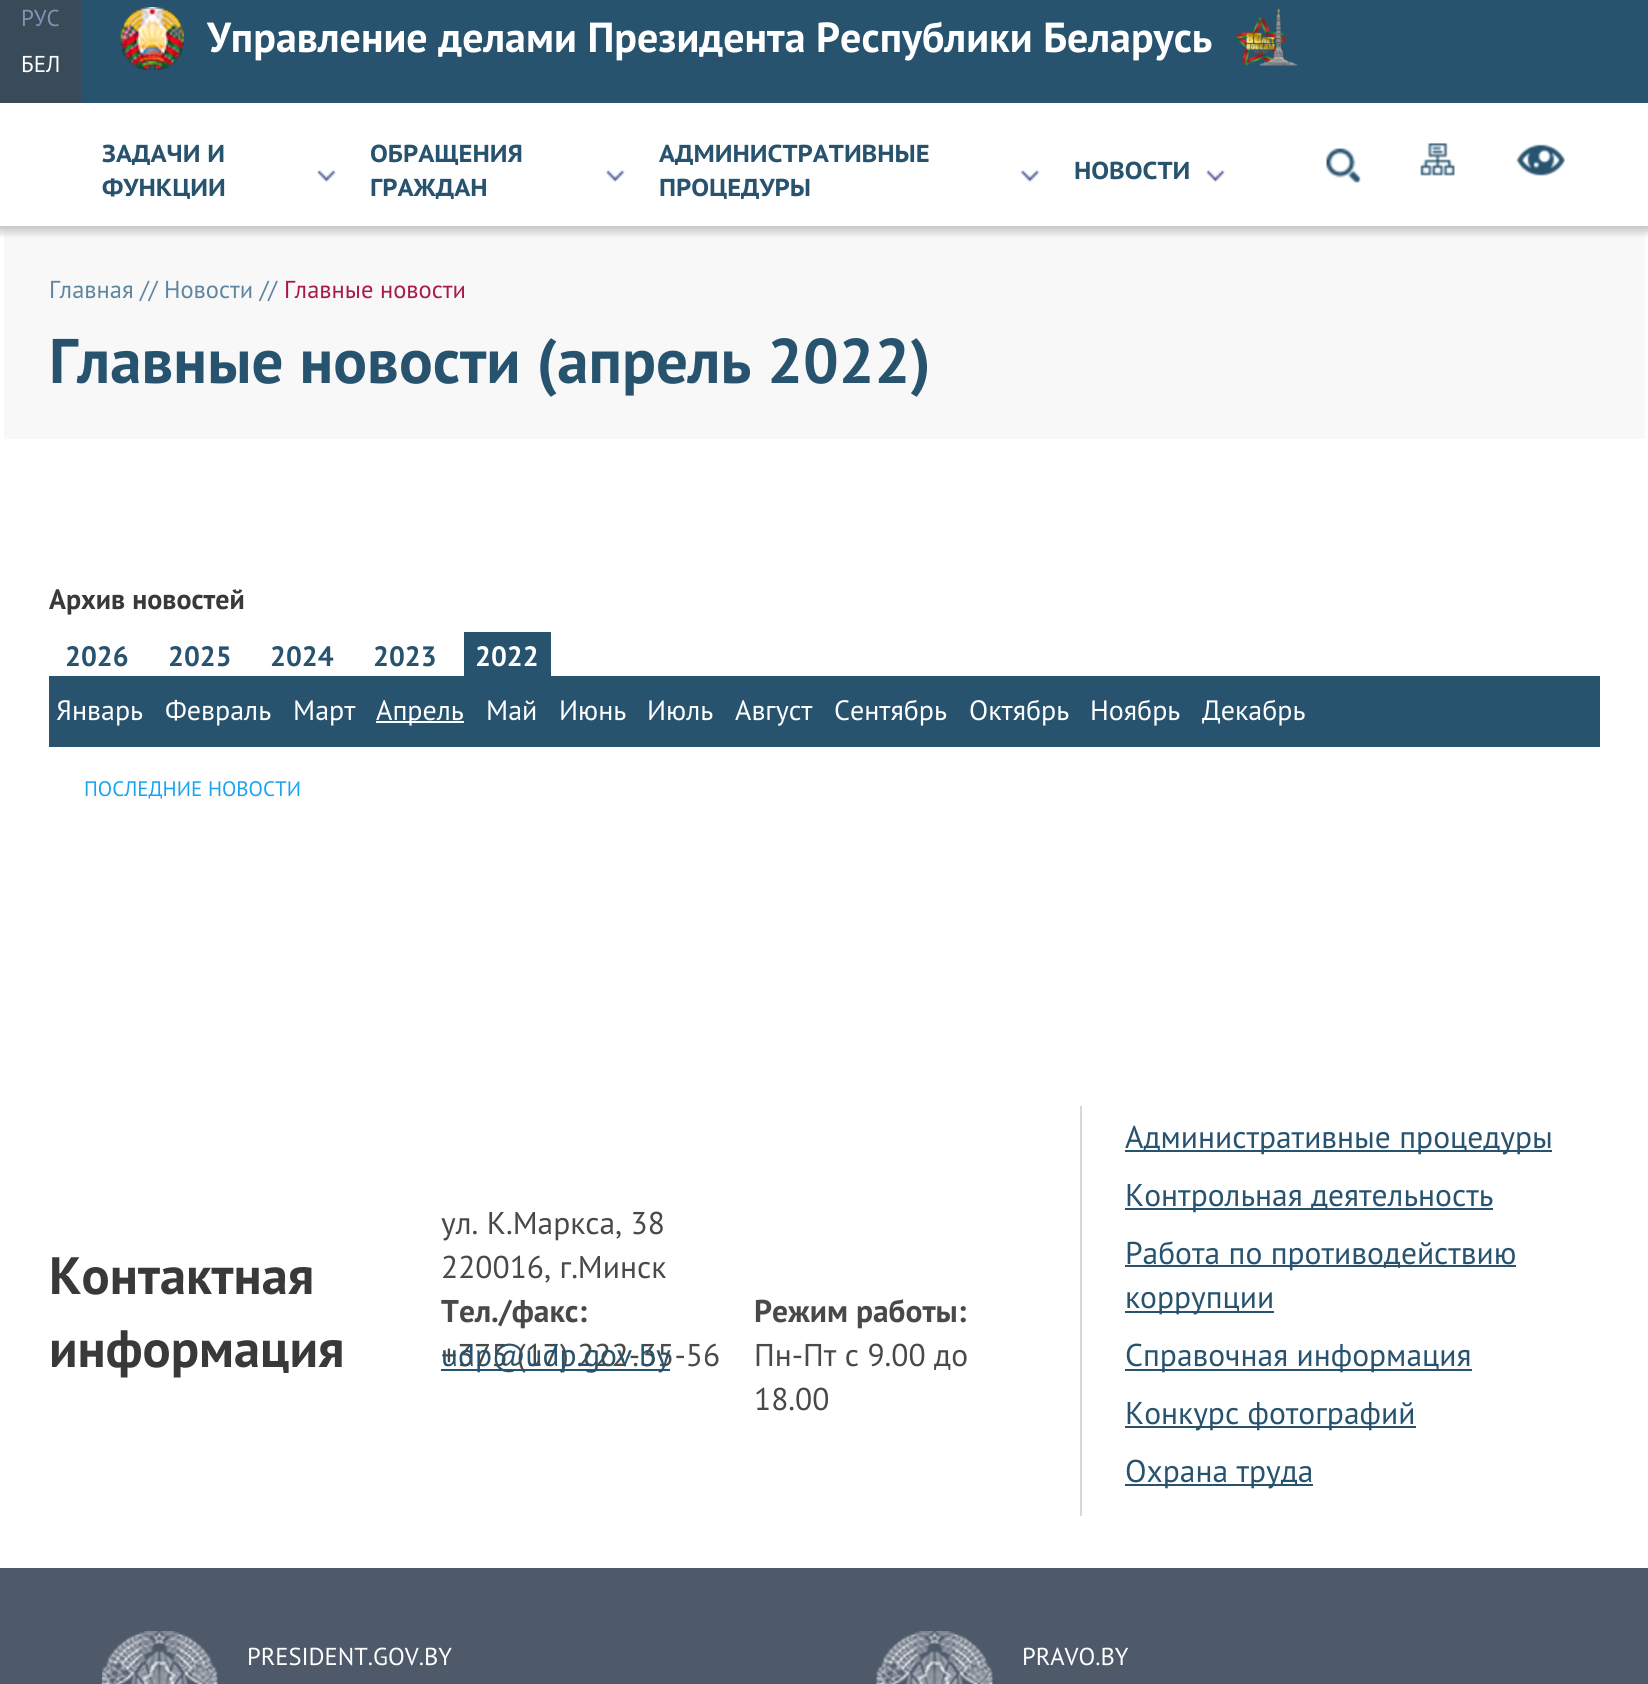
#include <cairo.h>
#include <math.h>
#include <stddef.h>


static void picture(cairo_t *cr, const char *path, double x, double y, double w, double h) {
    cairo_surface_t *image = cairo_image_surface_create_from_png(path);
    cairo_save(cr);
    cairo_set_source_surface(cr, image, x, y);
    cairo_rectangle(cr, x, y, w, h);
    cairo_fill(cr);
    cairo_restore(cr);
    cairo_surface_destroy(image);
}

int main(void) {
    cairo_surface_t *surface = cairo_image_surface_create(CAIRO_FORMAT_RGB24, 1648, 1684);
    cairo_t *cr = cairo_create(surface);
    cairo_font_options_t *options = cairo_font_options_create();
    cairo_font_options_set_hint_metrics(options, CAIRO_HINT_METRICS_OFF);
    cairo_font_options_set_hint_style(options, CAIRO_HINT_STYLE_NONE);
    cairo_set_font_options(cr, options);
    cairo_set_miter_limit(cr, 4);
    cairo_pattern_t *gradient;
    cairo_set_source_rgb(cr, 1, 1, 1);
    cairo_paint(cr);
    cairo_set_source_rgb(cr, 0.157, 0.325, 0.435);
    cairo_rectangle(cr, 81, 0, 1567, 103);
    cairo_fill(cr);
    cairo_set_source_rgb(cr, 0.224, 0.29, 0.345);
    cairo_rectangle(cr, 0, 0, 81, 103);
    cairo_fill(cr);
    cairo_select_font_face(cr, "PT Sans", CAIRO_FONT_SLANT_NORMAL, CAIRO_FONT_WEIGHT_NORMAL);
    cairo_set_font_size(cr, 23);
    cairo_set_source_rgb(cr, 0.502, 0.58, 0.702);
    cairo_move_to(cr, 21, 26);
    cairo_show_text(cr, "РУС");
    cairo_set_source_rgb(cr, 1, 1, 1);
    cairo_move_to(cr, 21, 72);
    cairo_show_text(cr, "БЕЛ");
    picture(cr, "img1.png", 120, 7, 64, 63);
    cairo_select_font_face(cr, "PT Sans", CAIRO_FONT_SLANT_NORMAL, CAIRO_FONT_WEIGHT_BOLD);
    cairo_set_font_size(cr, 42);
    cairo_move_to(cr, 207, 52);
    cairo_show_text(cr, "Управление делами Президента Республики Беларусь");
    picture(cr, "img2.png", 1235, 8, 63, 58);
    cairo_select_font_face(cr, "PT Sans Caption", CAIRO_FONT_SLANT_NORMAL, CAIRO_FONT_WEIGHT_BOLD);
    cairo_set_font_size(cr, 24.5);
    cairo_set_source_rgb(cr, 0.157, 0.325, 0.435);
    cairo_move_to(cr, 102, 162);
    cairo_show_text(cr, "ЗАДАЧИ И");
    picture(cr, "img3.png", 316, 170, 20, 13);
    cairo_move_to(cr, 102, 196);
    cairo_show_text(cr, "ФУНКЦИИ");
    cairo_move_to(cr, 370, 162);
    cairo_show_text(cr, "ОБРАЩЕНИЯ");
    picture(cr, "img4.png", 605, 170, 20, 13);
    cairo_move_to(cr, 370, 196);
    cairo_show_text(cr, "ГРАЖДАН");
    cairo_move_to(cr, 659, 162);
    cairo_show_text(cr, "АДМИНИСТРАТИВНЫЕ");
    picture(cr, "img5.png", 1020, 170, 20, 13);
    cairo_move_to(cr, 659, 196);
    cairo_show_text(cr, "ПРОЦЕДУРЫ");
    cairo_move_to(cr, 1074, 179);
    cairo_show_text(cr, "НОВОСТИ");
    picture(cr, "img3.png", 1205, 170, 20, 13);
    picture(cr, "img6.png", 1326, 148, 35, 35);
    picture(cr, "img7.png", 1420, 143, 35, 33);
    picture(cr, "img8.png", 1516, 144, 49, 32);
    cairo_set_source_rgb(cr, 0.969, 0.969, 0.969);
    cairo_rectangle(cr, 4, 226, 1641, 213);
    cairo_fill(cr);
    gradient = cairo_pattern_create_linear(824, 226, 824, 238);
    cairo_pattern_add_color_stop_rgba(gradient, 0, 0.776, 0.776, 0.776, 1);
    cairo_pattern_add_color_stop_rgba(gradient, 1, 0.776, 0.776, 0.776, 0);
    cairo_set_source(cr, gradient);
    cairo_pattern_destroy(gradient);
    cairo_rectangle(cr, 0, 226, 1648, 12);
    cairo_fill(cr);
    cairo_select_font_face(cr, "PT Sans", CAIRO_FONT_SLANT_NORMAL, CAIRO_FONT_WEIGHT_NORMAL);
    cairo_set_source_rgb(cr, 0.373, 0.525, 0.624);
    cairo_move_to(cr, 49, 298);
    cairo_show_text(cr, "Главная // Новости //");
    cairo_set_source_rgb(cr, 0.659, 0.102, 0.298);
    cairo_move_to(cr, 284, 298);
    cairo_show_text(cr, "Главные новости");
    cairo_select_font_face(cr, "PT Sans", CAIRO_FONT_SLANT_NORMAL, CAIRO_FONT_WEIGHT_BOLD);
    cairo_set_font_size(cr, 63);
    cairo_set_source_rgb(cr, 0.157, 0.325, 0.435);
    cairo_move_to(cr, 49, 383);
    cairo_show_text(cr, "Главные новости (апрель 2022)");
    cairo_set_font_size(cr, 28);
    cairo_set_source_rgb(cr, 0.224, 0.224, 0.224);
    cairo_move_to(cr, 49, 609);
    cairo_show_text(cr, "Архив новостей");
    cairo_set_source_rgb(cr, 0.157, 0.325, 0.435);
    cairo_rectangle(cr, 464, 632, 87, 44);
    cairo_fill(cr);
    cairo_set_source_rgb(cr, 1, 1, 1);
    cairo_move_to(cr, 475, 666);
    cairo_show_text(cr, "2022");
    cairo_set_source_rgb(cr, 0.157, 0.325, 0.435);
    cairo_rectangle(cr, 49, 676, 1551, 71);
    cairo_fill(cr);
    cairo_select_font_face(cr, "PT Sans", CAIRO_FONT_SLANT_NORMAL, CAIRO_FONT_WEIGHT_NORMAL);
    cairo_set_source_rgb(cr, 1, 1, 1);
    cairo_move_to(cr, 56, 720);
    cairo_show_text(cr, "Январь");
    cairo_move_to(cr, 165, 720);
    cairo_show_text(cr, "Февраль");
    cairo_move_to(cr, 293, 720);
    cairo_show_text(cr, "Март");
    cairo_rectangle(cr, 376, 721, 88, 2);
    cairo_fill(cr);
    cairo_move_to(cr, 376, 720);
    cairo_show_text(cr, "Апрель");
    cairo_move_to(cr, 486, 720);
    cairo_show_text(cr, "Май");
    cairo_move_to(cr, 559, 720);
    cairo_show_text(cr, "Июнь");
    cairo_move_to(cr, 647, 720);
    cairo_show_text(cr, "Июль");
    cairo_move_to(cr, 735, 720);
    cairo_show_text(cr, "Август");
    cairo_move_to(cr, 834, 720);
    cairo_show_text(cr, "Сентябрь");
    cairo_move_to(cr, 969, 720);
    cairo_show_text(cr, "Октябрь");
    cairo_move_to(cr, 1090, 720);
    cairo_show_text(cr, "Ноябрь");
    cairo_move_to(cr, 1202, 720);
    cairo_show_text(cr, "Декабрь");
    cairo_select_font_face(cr, "PT Sans", CAIRO_FONT_SLANT_NORMAL, CAIRO_FONT_WEIGHT_BOLD);
    cairo_set_source_rgb(cr, 0.157, 0.325, 0.435);
    cairo_move_to(cr, 65, 666);
    cairo_show_text(cr, "2026");
    cairo_move_to(cr, 168, 666);
    cairo_show_text(cr, "2025");
    cairo_move_to(cr, 270, 666);
    cairo_show_text(cr, "2024");
    cairo_move_to(cr, 373, 666);
    cairo_show_text(cr, "2023");
    cairo_select_font_face(cr, "PT Sans", CAIRO_FONT_SLANT_NORMAL, CAIRO_FONT_WEIGHT_NORMAL);
    cairo_set_font_size(cr, 21);
    cairo_set_source_rgb(cr, 0.102, 0.643, 0.937);
    cairo_move_to(cr, 84, 796);
    cairo_show_text(cr, "ПОСЛЕДНИЕ НОВОСТИ");
    cairo_select_font_face(cr, "PT Sans", CAIRO_FONT_SLANT_NORMAL, CAIRO_FONT_WEIGHT_BOLD);
    cairo_set_font_size(cr, 52.5);
    cairo_set_source_rgb(cr, 0.224, 0.224, 0.224);
    cairo_move_to(cr, 49, 1294);
    cairo_show_text(cr, "Контактная");
    cairo_move_to(cr, 49, 1367);
    cairo_show_text(cr, "информация");
    cairo_select_font_face(cr, "PT Sans", CAIRO_FONT_SLANT_NORMAL, CAIRO_FONT_WEIGHT_NORMAL);
    cairo_set_font_size(cr, 31.5);
    cairo_set_source_rgb(cr, 0.286, 0.286, 0.286);
    cairo_move_to(cr, 441, 1234);
    cairo_show_text(cr, "ул. К.Маркса, 38");
    cairo_move_to(cr, 441, 1278);
    cairo_show_text(cr, "220016, г.Минск");
    cairo_select_font_face(cr, "PT Sans", CAIRO_FONT_SLANT_NORMAL, CAIRO_FONT_WEIGHT_BOLD);
    cairo_move_to(cr, 441, 1322);
    cairo_show_text(cr, "Тел./факс:");
    cairo_select_font_face(cr, "PT Sans", CAIRO_FONT_SLANT_NORMAL, CAIRO_FONT_WEIGHT_NORMAL);
    cairo_move_to(cr, 441, 1366);
    cairo_show_text(cr, "+375 (17) 222-35-56");
    cairo_set_source_rgb(cr, 0.157, 0.325, 0.435);
    cairo_rectangle(cr, 441, 1369, 229, 2);
    cairo_fill(cr);
    cairo_move_to(cr, 441, 1366);
    cairo_show_text(cr, "udp@udp.gov.by");
    cairo_select_font_face(cr, "PT Sans", CAIRO_FONT_SLANT_NORMAL, CAIRO_FONT_WEIGHT_BOLD);
    cairo_set_source_rgb(cr, 0.286, 0.286, 0.286);
    cairo_move_to(cr, 754, 1322);
    cairo_show_text(cr, "Режим работы:");
    cairo_select_font_face(cr, "PT Sans", CAIRO_FONT_SLANT_NORMAL, CAIRO_FONT_WEIGHT_NORMAL);
    cairo_move_to(cr, 754, 1366);
    cairo_show_text(cr, "Пн-Пт с 9.00 до");
    cairo_move_to(cr, 754, 1410);
    cairo_show_text(cr, "18.00");
    cairo_set_source_rgb(cr, 0.843, 0.843, 0.843);
    cairo_rectangle(cr, 1080, 1106, 2, 410);
    cairo_fill(cr);
    cairo_set_source_rgb(cr, 0.157, 0.325, 0.435);
    cairo_rectangle(cr, 1125, 1150, 427, 2);
    cairo_fill(cr);
    cairo_move_to(cr, 1125, 1148);
    cairo_show_text(cr, "Административные процедуры");
    cairo_rectangle(cr, 1125, 1208, 368, 2);
    cairo_fill(cr);
    cairo_move_to(cr, 1125, 1206);
    cairo_show_text(cr, "Контрольная деятельность");
    cairo_rectangle(cr, 1125, 1265, 391, 2);
    cairo_fill(cr);
    cairo_move_to(cr, 1125, 1264);
    cairo_show_text(cr, "Работа по противодействию");
    cairo_rectangle(cr, 1125, 1311, 149, 2);
    cairo_fill(cr);
    cairo_move_to(cr, 1125, 1308);
    cairo_show_text(cr, "коррупции");
    cairo_rectangle(cr, 1125, 1369, 347, 2);
    cairo_fill(cr);
    cairo_move_to(cr, 1125, 1366);
    cairo_show_text(cr, "Справочная информация");
    cairo_rectangle(cr, 1125, 1426, 291, 2);
    cairo_fill(cr);
    cairo_move_to(cr, 1125, 1424);
    cairo_show_text(cr, "Конкурс фотографий");
    cairo_rectangle(cr, 1125, 1484, 188, 2);
    cairo_fill(cr);
    cairo_move_to(cr, 1125, 1482);
    cairo_show_text(cr, "Охрана труда");
    cairo_set_source_rgb(cr, 0.306, 0.349, 0.416);
    cairo_rectangle(cr, 0, 1568, 1648, 116);
    cairo_fill(cr);
    picture(cr, "img9.png", 102, 1631, 116, 53);
    cairo_set_font_size(cr, 24.5);
    cairo_set_source_rgb(cr, 1, 1, 1);
    cairo_move_to(cr, 247, 1665);
    cairo_show_text(cr, "PRESIDENT.GOV.BY");
    picture(cr, "img10.png", 876, 1631, 117, 53);
    cairo_move_to(cr, 1022, 1665);
    cairo_show_text(cr, "PRAVO.BY");
    cairo_surface_write_to_png(surface, "page.png");
    cairo_font_options_destroy(options);
    cairo_destroy(cr);
    cairo_surface_destroy(surface);
    return 0;
}
